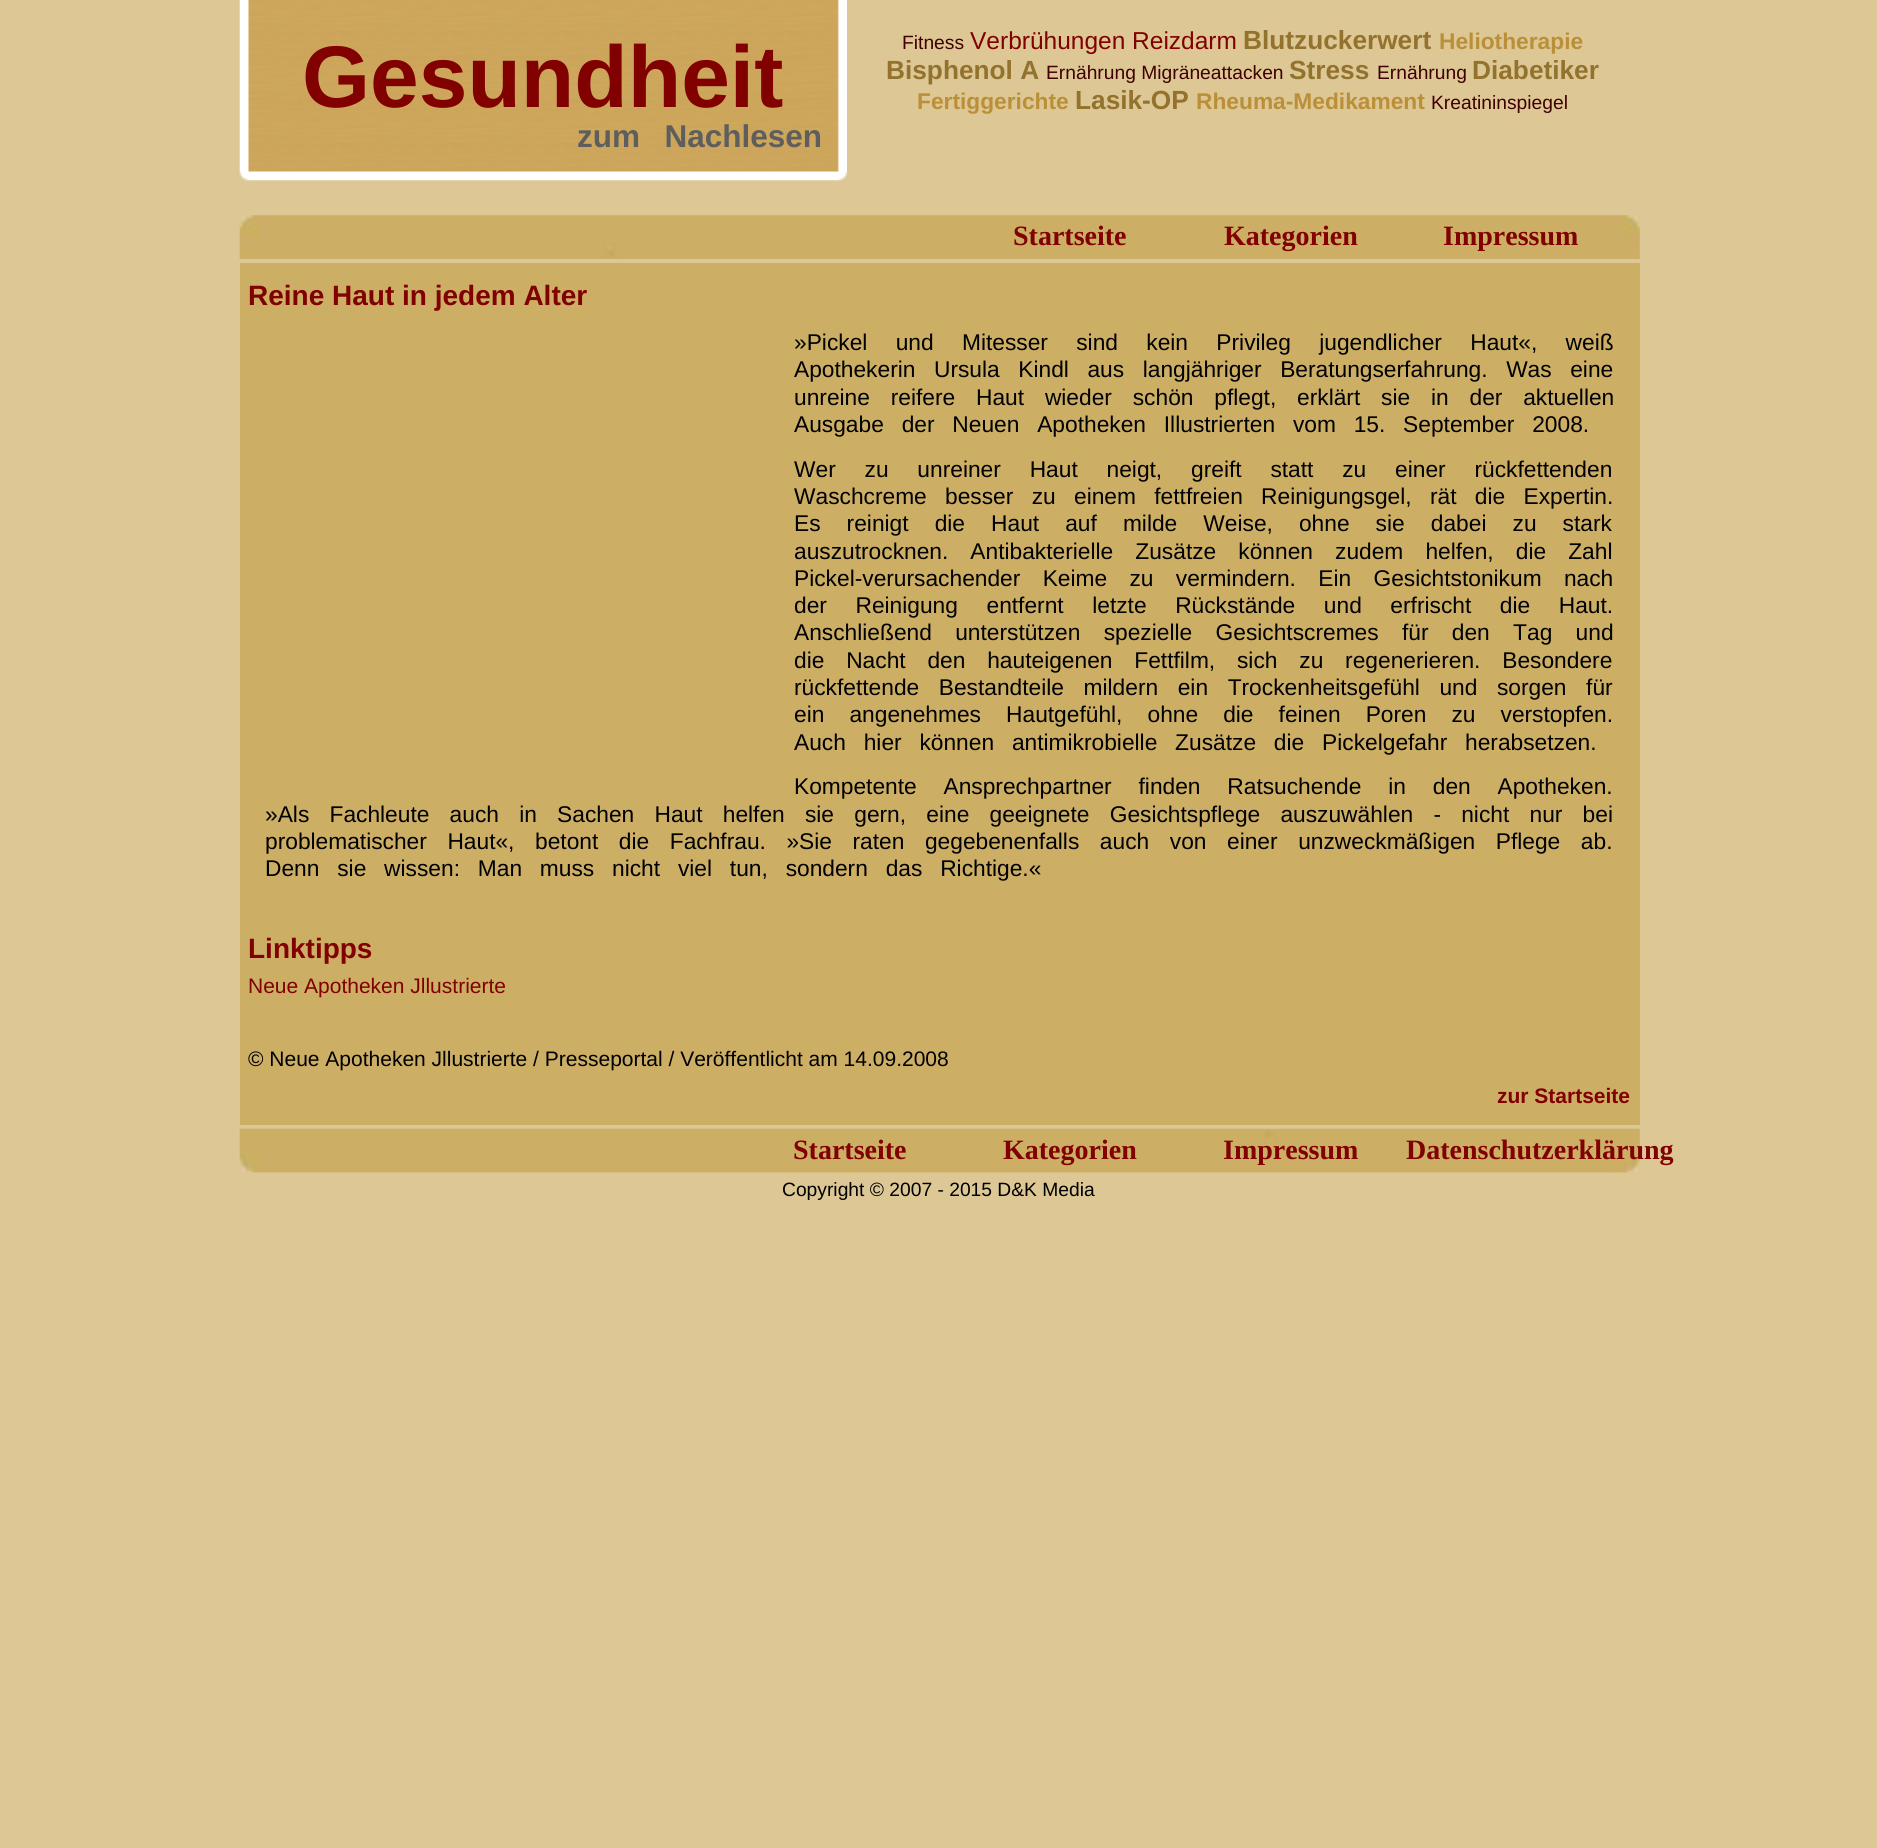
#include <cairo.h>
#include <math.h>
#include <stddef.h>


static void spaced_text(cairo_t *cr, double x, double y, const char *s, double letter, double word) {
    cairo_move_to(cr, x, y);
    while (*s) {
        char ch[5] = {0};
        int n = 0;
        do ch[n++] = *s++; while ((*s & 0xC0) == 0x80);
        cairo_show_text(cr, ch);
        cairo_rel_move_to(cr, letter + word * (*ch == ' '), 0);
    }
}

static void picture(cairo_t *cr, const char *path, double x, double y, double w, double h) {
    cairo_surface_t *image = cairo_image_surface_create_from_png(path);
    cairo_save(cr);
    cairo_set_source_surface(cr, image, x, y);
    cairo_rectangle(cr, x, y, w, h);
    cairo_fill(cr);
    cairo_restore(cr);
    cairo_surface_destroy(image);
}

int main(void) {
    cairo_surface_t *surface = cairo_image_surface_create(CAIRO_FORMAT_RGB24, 1877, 1848);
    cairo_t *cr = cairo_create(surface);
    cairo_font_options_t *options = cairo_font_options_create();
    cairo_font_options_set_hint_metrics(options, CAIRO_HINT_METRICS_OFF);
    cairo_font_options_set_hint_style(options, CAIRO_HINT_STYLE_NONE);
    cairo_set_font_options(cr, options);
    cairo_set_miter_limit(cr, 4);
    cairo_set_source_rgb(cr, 0.863, 0.78, 0.584);
    cairo_paint(cr);
    picture(cr, "img1.png", 239, 0, 608, 181);
    cairo_select_font_face(cr, "Liberation Sans", CAIRO_FONT_SLANT_NORMAL, CAIRO_FONT_WEIGHT_BOLD);
    cairo_set_font_size(cr, 87.5);
    cairo_set_source_rgb(cr, 0.506, 0, 0);
    cairo_move_to(cr, 302, 107);
    cairo_show_text(cr, "Gesundheit");
    cairo_set_font_size(cr, 31.5);
    cairo_set_source_rgb(cr, 0.369, 0.369, 0.369);
    spaced_text(cr, 577, 147, "zum Nachlesen", 0, 15.75);
    cairo_select_font_face(cr, "Liberation Sans", CAIRO_FONT_SLANT_NORMAL, CAIRO_FONT_WEIGHT_NORMAL);
    cairo_set_font_size(cr, 19.25);
    cairo_set_source_rgb(cr, 0.251, 0, 0);
    cairo_move_to(cr, 902, 49);
    cairo_show_text(cr, "Fitness");
    cairo_set_font_size(cr, 24.5);
    cairo_set_source_rgb(cr, 0.506, 0, 0);
    cairo_move_to(cr, 970, 49);
    cairo_show_text(cr, "Verbrühungen Reizdarm");
    cairo_select_font_face(cr, "Liberation Sans", CAIRO_FONT_SLANT_NORMAL, CAIRO_FONT_WEIGHT_BOLD);
    cairo_set_font_size(cr, 26.25);
    cairo_set_source_rgb(cr, 0.576, 0.447, 0.176);
    cairo_move_to(cr, 1243, 49);
    cairo_show_text(cr, "Blutzuckerwert");
    cairo_set_font_size(cr, 22.75);
    cairo_set_source_rgb(cr, 0.729, 0.561, 0.22);
    cairo_move_to(cr, 1439, 49);
    cairo_show_text(cr, "Heliotherapie");
    cairo_set_font_size(cr, 26.25);
    cairo_set_source_rgb(cr, 0.576, 0.447, 0.176);
    cairo_move_to(cr, 886, 79);
    cairo_show_text(cr, "Bisphenol A");
    cairo_select_font_face(cr, "Liberation Sans", CAIRO_FONT_SLANT_NORMAL, CAIRO_FONT_WEIGHT_NORMAL);
    cairo_set_font_size(cr, 19.25);
    cairo_set_source_rgb(cr, 0.251, 0, 0);
    cairo_move_to(cr, 1046, 79);
    cairo_show_text(cr, "Ernährung Migräneattacken");
    cairo_select_font_face(cr, "Liberation Sans", CAIRO_FONT_SLANT_NORMAL, CAIRO_FONT_WEIGHT_BOLD);
    cairo_set_font_size(cr, 26.25);
    cairo_set_source_rgb(cr, 0.576, 0.447, 0.176);
    cairo_move_to(cr, 1289, 79);
    cairo_show_text(cr, "Stress");
    cairo_select_font_face(cr, "Liberation Sans", CAIRO_FONT_SLANT_NORMAL, CAIRO_FONT_WEIGHT_NORMAL);
    cairo_set_font_size(cr, 19.25);
    cairo_set_source_rgb(cr, 0.251, 0, 0);
    cairo_move_to(cr, 1377, 79);
    cairo_show_text(cr, "Ernährung");
    cairo_select_font_face(cr, "Liberation Sans", CAIRO_FONT_SLANT_NORMAL, CAIRO_FONT_WEIGHT_BOLD);
    cairo_set_font_size(cr, 26.25);
    cairo_set_source_rgb(cr, 0.576, 0.447, 0.176);
    cairo_move_to(cr, 1472, 79);
    cairo_show_text(cr, "Diabetiker");
    cairo_set_font_size(cr, 22.75);
    cairo_set_source_rgb(cr, 0.729, 0.561, 0.22);
    cairo_move_to(cr, 917, 109);
    cairo_show_text(cr, "Fertiggerichte");
    cairo_set_font_size(cr, 26.25);
    cairo_set_source_rgb(cr, 0.576, 0.447, 0.176);
    cairo_move_to(cr, 1075, 109);
    cairo_show_text(cr, "Lasik-OP");
    cairo_set_font_size(cr, 22.75);
    cairo_set_source_rgb(cr, 0.729, 0.561, 0.22);
    cairo_move_to(cr, 1196, 109);
    cairo_show_text(cr, "Rheuma-Medikament");
    cairo_select_font_face(cr, "Liberation Sans", CAIRO_FONT_SLANT_NORMAL, CAIRO_FONT_WEIGHT_NORMAL);
    cairo_set_font_size(cr, 19.25);
    cairo_set_source_rgb(cr, 0.251, 0, 0);
    cairo_move_to(cr, 1431, 109);
    cairo_show_text(cr, "Kreatininspiegel");
    picture(cr, "img2.png", 239, 215, 1401, 44);
    cairo_select_font_face(cr, "Liberation Serif", CAIRO_FONT_SLANT_NORMAL, CAIRO_FONT_WEIGHT_BOLD);
    cairo_set_font_size(cr, 28);
    cairo_set_source_rgb(cr, 0.506, 0, 0);
    cairo_move_to(cr, 1013, 245);
    cairo_show_text(cr, "Startseite");
    cairo_move_to(cr, 1224, 245);
    cairo_show_text(cr, "Kategorien");
    cairo_move_to(cr, 1443, 245);
    cairo_show_text(cr, "Impressum");
    cairo_set_source_rgb(cr, 0.8, 0.682, 0.396);
    cairo_rectangle(cr, 240, 263, 1400, 862);
    cairo_fill(cr);
    cairo_select_font_face(cr, "Liberation Sans", CAIRO_FONT_SLANT_NORMAL, CAIRO_FONT_WEIGHT_BOLD);
    cairo_set_source_rgb(cr, 0.506, 0, 0);
    cairo_move_to(cr, 248, 305);
    cairo_show_text(cr, "Reine Haut in jedem Alter");
    cairo_select_font_face(cr, "Liberation Sans", CAIRO_FONT_SLANT_NORMAL, CAIRO_FONT_WEIGHT_NORMAL);
    cairo_set_font_size(cr, 22.75);
    cairo_set_source_rgb(cr, 0, 0, 0);
    spaced_text(cr, 794, 350, "»Pickel und Mitesser sind kein Privileg jugendlicher Haut«, weiß", 0, 22);
    spaced_text(cr, 794, 377, "Apothekerin Ursula Kindl aus langjähriger Beratungserfahrung. Was eine", 0, 12.25);
    spaced_text(cr, 794, 405, "unreine reifere Haut wieder schön pflegt, erklärt sie in der aktuellen", 0, 14.5);
    spaced_text(cr, 794, 432, "Ausgabe der Neuen Apotheken Illustrierten vom 15. September 2008.", 0, 11.5);
    spaced_text(cr, 794, 477, "Wer zu unreiner Haut neigt, greift statt zu einer rückfettenden", 0, 22.5);
    spaced_text(cr, 794, 504, "Waschcreme besser zu einem fettfreien Reinigungsgel, rät die Expertin.", 0, 12);
    spaced_text(cr, 794, 531, "Es reinigt die Haut auf milde Weise, ohne sie dabei zu stark", 0, 19.75);
    spaced_text(cr, 794, 559, "auszutrocknen. Antibakterielle Zusätze können zudem helfen, die Zahl", 0, 15.75);
    spaced_text(cr, 794, 586, "Pickel-verursachender Keime zu vermindern. Ein Gesichtstonikum nach", 0, 16);
    spaced_text(cr, 794, 613, "der Reinigung entfernt letzte Rückstände und erfrischt die Haut.", 0, 22.25);
    spaced_text(cr, 794, 640, "Anschließend unterstützen spezielle Gesichtscremes für den Tag und", 0, 17);
    spaced_text(cr, 794, 668, "die Nacht den hauteigenen Fettfilm, sich zu regenerieren. Besondere", 0, 15.5);
    spaced_text(cr, 794, 695, "rückfettende Bestandteile mildern ein Trockenheitsgefühl und sorgen für", 0, 13.25);
    spaced_text(cr, 794, 722, "ein angenehmes Hautgefühl, ohne die feinen Poren zu verstopfen.", 0, 18.75);
    spaced_text(cr, 794, 750, "Auch hier können antimikrobielle Zusätze die Pickelgefahr herabsetzen.", 0, 11.5);
    spaced_text(cr, 794, 794, "Kompetente Ansprechpartner finden Ratsuchende in den Apotheken.", 0, 20.5);
    spaced_text(cr, 265, 822, "»Als Fachleute auch in Sachen Haut helfen sie gern, eine geeignete Gesichtspflege auszuwählen - nicht nur bei", 0, 13.9);
    spaced_text(cr, 265, 849, "problematischer Haut«, betont die Fachfrau. »Sie raten gegebenenfalls auch von einer unzweckmäßigen Pflege ab.", 0, 14.25);
    spaced_text(cr, 265, 876, "Denn sie wissen: Man muss nicht viel tun, sondern das Richtige.«", 0, 11.5);
    cairo_select_font_face(cr, "Liberation Sans", CAIRO_FONT_SLANT_NORMAL, CAIRO_FONT_WEIGHT_BOLD);
    cairo_set_font_size(cr, 28);
    cairo_set_source_rgb(cr, 0.506, 0, 0);
    cairo_move_to(cr, 248, 958);
    cairo_show_text(cr, "Linktipps");
    cairo_select_font_face(cr, "Liberation Sans", CAIRO_FONT_SLANT_NORMAL, CAIRO_FONT_WEIGHT_NORMAL);
    cairo_set_font_size(cr, 21);
    cairo_move_to(cr, 248, 993);
    cairo_show_text(cr, "Neue Apotheken Jllustrierte");
    cairo_set_source_rgb(cr, 0, 0, 0);
    cairo_move_to(cr, 248, 1066);
    cairo_show_text(cr, "© Neue Apotheken Jllustrierte / Presseportal / Veröffentlicht am 14.09.2008");
    cairo_select_font_face(cr, "Liberation Sans", CAIRO_FONT_SLANT_NORMAL, CAIRO_FONT_WEIGHT_BOLD);
    cairo_set_source_rgb(cr, 0.506, 0, 0);
    cairo_move_to(cr, 1497, 1103);
    cairo_show_text(cr, "zur Startseite");
    picture(cr, "img3.png", 239, 1128, 1401, 45);
    cairo_select_font_face(cr, "Liberation Serif", CAIRO_FONT_SLANT_NORMAL, CAIRO_FONT_WEIGHT_BOLD);
    cairo_set_font_size(cr, 28);
    cairo_move_to(cr, 793, 1159);
    cairo_show_text(cr, "Startseite");
    cairo_move_to(cr, 1003, 1159);
    cairo_show_text(cr, "Kategorien");
    cairo_move_to(cr, 1223, 1159);
    cairo_show_text(cr, "Impressum");
    cairo_move_to(cr, 1406, 1159);
    cairo_show_text(cr, "Datenschutzerklärung");
    cairo_select_font_face(cr, "Liberation Sans", CAIRO_FONT_SLANT_NORMAL, CAIRO_FONT_WEIGHT_NORMAL);
    cairo_set_font_size(cr, 19.25);
    cairo_set_source_rgb(cr, 0, 0, 0);
    cairo_move_to(cr, 782, 1196);
    cairo_show_text(cr, "Copyright © 2007 - 2015 D&K Media");
    cairo_surface_write_to_png(surface, "page.png");
    cairo_font_options_destroy(options);
    cairo_destroy(cr);
    cairo_surface_destroy(surface);
    return 0;
}
